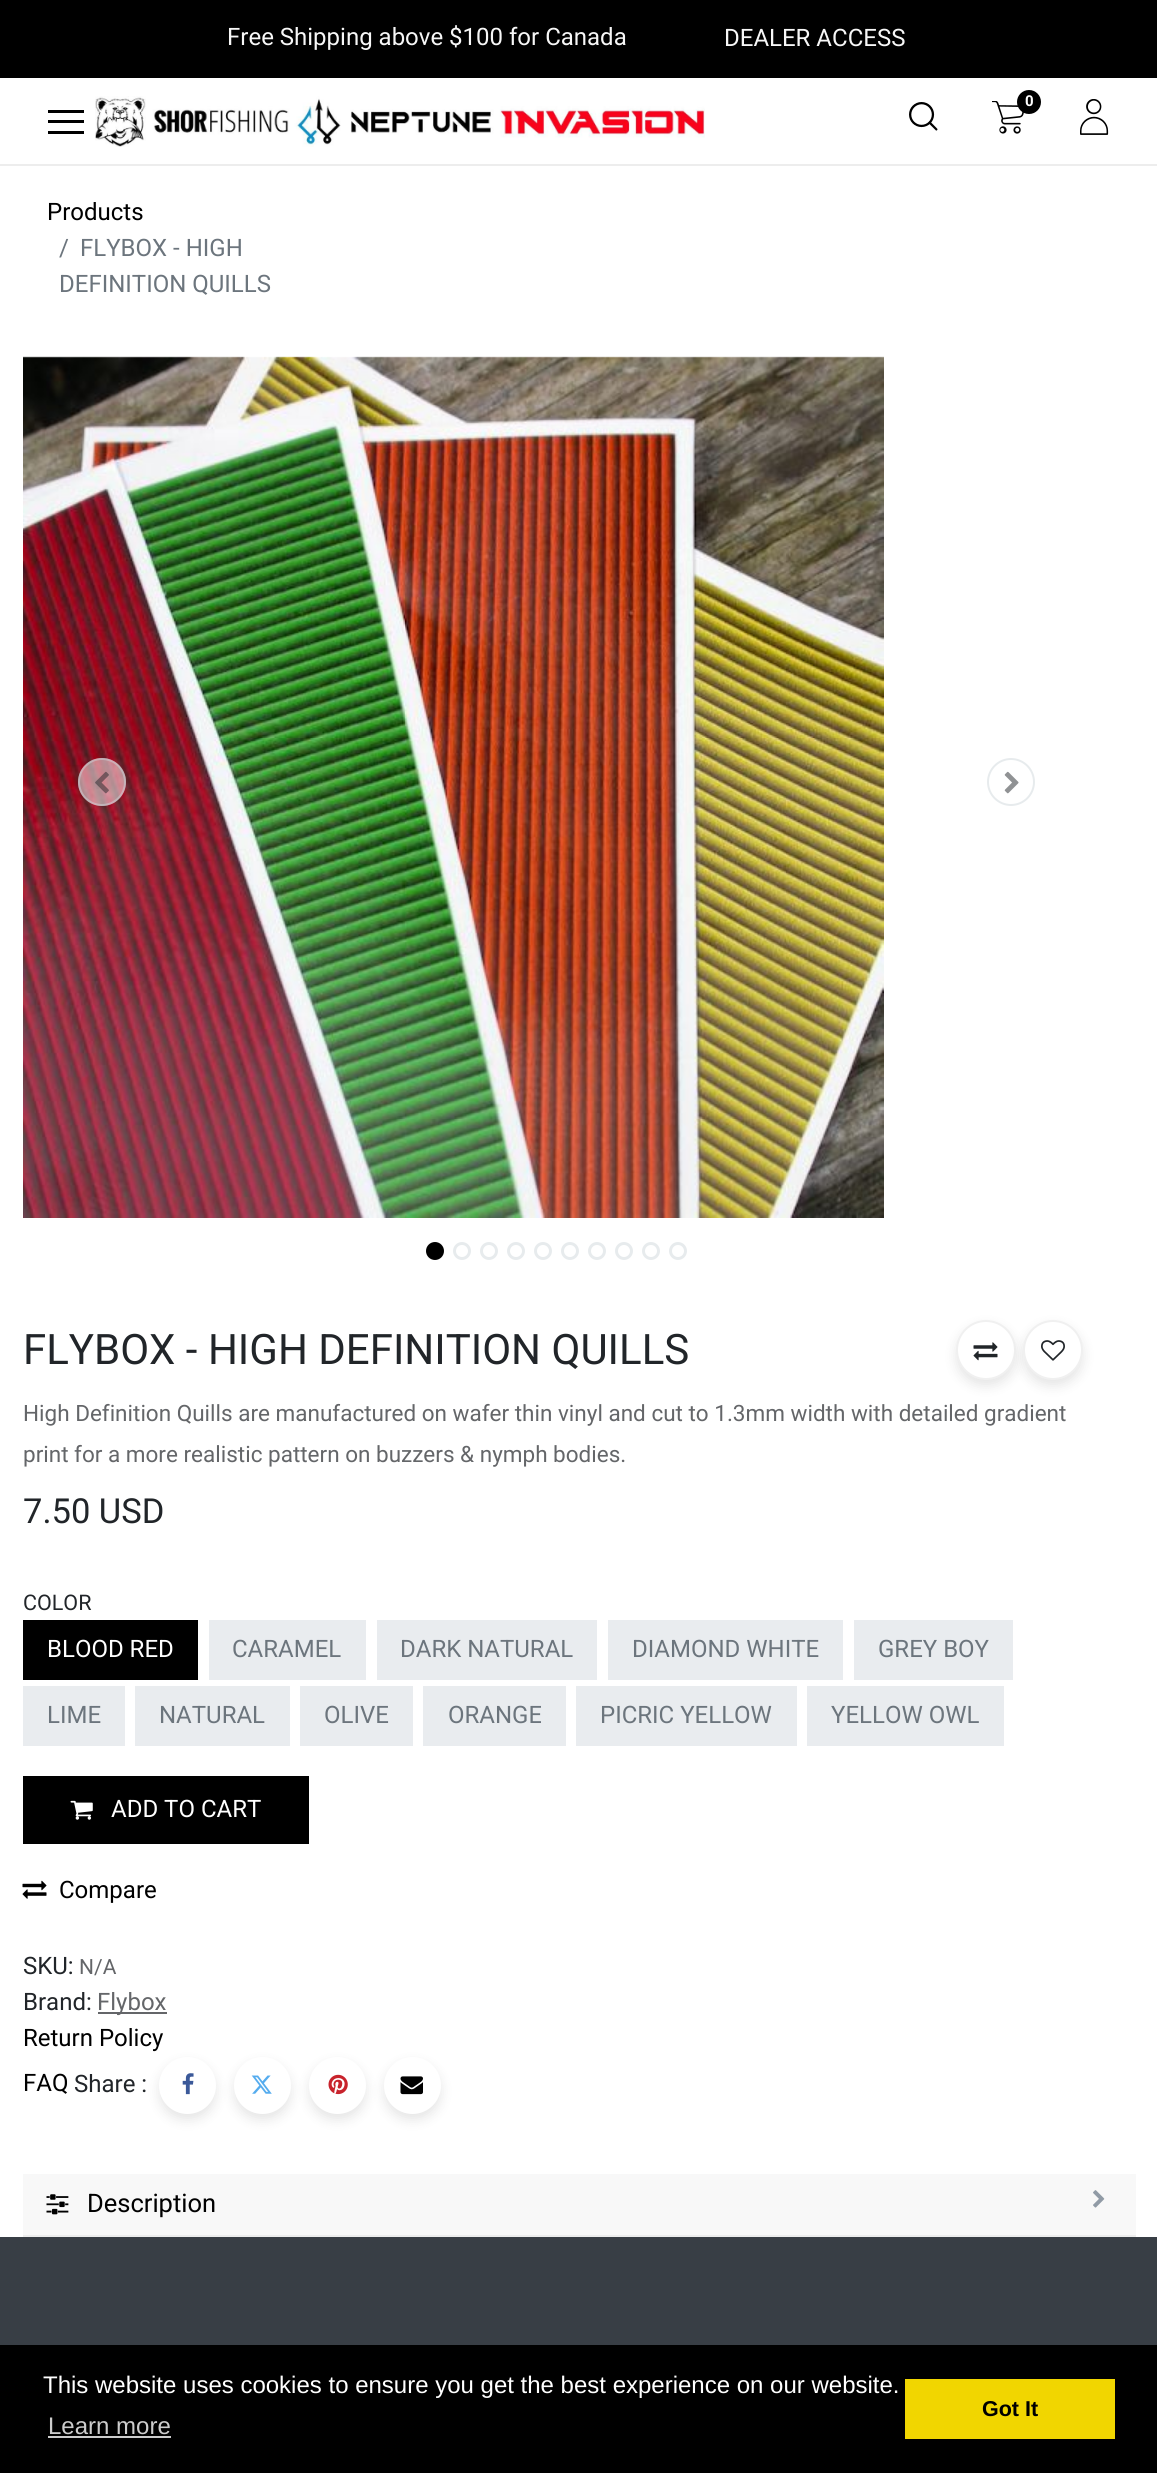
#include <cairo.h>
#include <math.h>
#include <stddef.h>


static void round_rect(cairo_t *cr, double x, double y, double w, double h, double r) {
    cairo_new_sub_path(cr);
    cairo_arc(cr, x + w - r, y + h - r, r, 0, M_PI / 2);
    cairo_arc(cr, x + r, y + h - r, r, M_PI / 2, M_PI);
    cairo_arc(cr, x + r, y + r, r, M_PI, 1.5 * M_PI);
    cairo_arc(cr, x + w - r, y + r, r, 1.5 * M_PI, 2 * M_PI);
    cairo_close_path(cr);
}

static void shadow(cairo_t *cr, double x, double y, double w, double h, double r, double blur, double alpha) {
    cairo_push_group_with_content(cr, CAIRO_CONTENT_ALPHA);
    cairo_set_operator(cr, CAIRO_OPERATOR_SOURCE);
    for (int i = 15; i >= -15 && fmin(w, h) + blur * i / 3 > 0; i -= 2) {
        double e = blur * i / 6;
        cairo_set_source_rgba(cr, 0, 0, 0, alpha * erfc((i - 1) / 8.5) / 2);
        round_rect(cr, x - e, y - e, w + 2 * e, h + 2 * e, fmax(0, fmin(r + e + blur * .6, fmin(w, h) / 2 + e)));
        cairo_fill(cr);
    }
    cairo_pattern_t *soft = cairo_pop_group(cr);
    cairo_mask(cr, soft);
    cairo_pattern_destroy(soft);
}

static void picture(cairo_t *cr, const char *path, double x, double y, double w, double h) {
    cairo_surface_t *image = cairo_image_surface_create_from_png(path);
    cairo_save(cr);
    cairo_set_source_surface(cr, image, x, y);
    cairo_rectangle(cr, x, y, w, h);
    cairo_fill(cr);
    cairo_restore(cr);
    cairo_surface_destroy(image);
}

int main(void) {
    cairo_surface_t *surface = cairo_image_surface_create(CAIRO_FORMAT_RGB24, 1157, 2473);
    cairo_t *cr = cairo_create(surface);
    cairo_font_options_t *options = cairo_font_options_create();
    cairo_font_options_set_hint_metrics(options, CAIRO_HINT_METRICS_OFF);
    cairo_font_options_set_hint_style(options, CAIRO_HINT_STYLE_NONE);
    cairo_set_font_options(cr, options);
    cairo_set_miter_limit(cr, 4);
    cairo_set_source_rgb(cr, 1, 1, 1);
    cairo_paint(cr);
    cairo_set_source_rgb(cr, 0, 0, 0);
    cairo_rectangle(cr, 0, 0, 1157, 78);
    cairo_fill(cr);
    cairo_select_font_face(cr, "Roboto", CAIRO_FONT_SLANT_NORMAL, CAIRO_FONT_WEIGHT_NORMAL);
    cairo_set_font_size(cr, 24);
    cairo_set_source_rgb(cr, 0.965, 0.965, 0.965);
    cairo_move_to(cr, 227, 45);
    cairo_show_text(cr, "Free Shipping above $100 for Canada");
    cairo_move_to(cr, 724, 46);
    cairo_show_text(cr, "DEALER ACCESS");
    cairo_set_source_rgb(cr, 0, 0, 0);
    cairo_rectangle(cr, 48, 110, 36, 3);
    cairo_fill(cr);
    cairo_rectangle(cr, 48, 120, 36, 3);
    cairo_fill(cr);
    cairo_rectangle(cr, 48, 131, 36, 3);
    cairo_fill(cr);
    picture(cr, "img1.png", 95, 96, 610, 51);
    picture(cr, "img2.png", 909, 102, 29, 29);
    picture(cr, "img3.png", 992, 101, 32, 33);
    cairo_arc(cr, 1029, 102, 12, 0, 2 * M_PI);
    cairo_fill(cr);
    cairo_select_font_face(cr, "Roboto", CAIRO_FONT_SLANT_NORMAL, CAIRO_FONT_WEIGHT_BOLD);
    cairo_set_font_size(cr, 15);
    cairo_set_source_rgb(cr, 1, 1, 1);
    cairo_move_to(cr, 1025, 106);
    cairo_show_text(cr, "0");
    picture(cr, "img4.png", 1080, 99, 29, 36);
    cairo_set_source_rgb(cr, 0.929, 0.929, 0.929);
    cairo_rectangle(cr, 0, 164, 1157, 2);
    cairo_fill(cr);
    cairo_select_font_face(cr, "Roboto", CAIRO_FONT_SLANT_NORMAL, CAIRO_FONT_WEIGHT_NORMAL);
    cairo_set_font_size(cr, 24);
    cairo_set_source_rgb(cr, 0, 0, 0);
    cairo_move_to(cr, 47, 220);
    cairo_show_text(cr, "Products");
    cairo_set_source_rgb(cr, 0.424, 0.459, 0.49);
    cairo_move_to(cr, 59, 256);
    cairo_show_text(cr, "/");
    cairo_move_to(cr, 80, 256);
    cairo_show_text(cr, "FLYBOX - HIGH");
    cairo_move_to(cr, 59, 292);
    cairo_show_text(cr, "DEFINITION QUILLS");
    picture(cr, "img5.png", 23, 356, 861, 862);
    cairo_set_source_rgba(cr, 1, 1, 1, 0.5);
    cairo_arc(cr, 102, 782, 24, 0, 2 * M_PI);
    cairo_fill(cr);
    cairo_arc(cr, 102, 782, 23, 0, 2 * M_PI);
    cairo_set_source_rgba(cr, 0.808, 0.831, 0.855, 0.5);
    cairo_stroke(cr);
    picture(cr, "img6.png", 95, 771, 14, 23);
    cairo_arc(cr, 1011, 782, 23, 0, 2 * M_PI);
    cairo_set_source_rgb(cr, 0.906, 0.918, 0.929);
    cairo_stroke(cr);
    picture(cr, "img7.png", 1004, 771, 15, 23);
    cairo_set_source_rgb(cr, 0, 0, 0);
    cairo_arc(cr, 435, 1251, 7.5, 0, 2 * M_PI);
    cairo_fill_preserve(cr);
    cairo_set_line_width(cr, 3);
    cairo_stroke(cr);
    cairo_arc(cr, 462, 1251, 7.5, 0, 2 * M_PI);
    cairo_set_source_rgb(cr, 0.906, 0.918, 0.929);
    cairo_stroke(cr);
    cairo_arc(cr, 489, 1251, 7.5, 0, 2 * M_PI);
    cairo_stroke(cr);
    cairo_arc(cr, 516, 1251, 7.5, 0, 2 * M_PI);
    cairo_stroke(cr);
    cairo_arc(cr, 543, 1251, 7.5, 0, 2 * M_PI);
    cairo_stroke(cr);
    cairo_arc(cr, 570, 1251, 7.5, 0, 2 * M_PI);
    cairo_stroke(cr);
    cairo_arc(cr, 597, 1251, 7.5, 0, 2 * M_PI);
    cairo_stroke(cr);
    cairo_arc(cr, 624, 1251, 7.5, 0, 2 * M_PI);
    cairo_stroke(cr);
    cairo_arc(cr, 651, 1251, 7.5, 0, 2 * M_PI);
    cairo_stroke(cr);
    cairo_arc(cr, 678, 1251, 7.5, 0, 2 * M_PI);
    cairo_stroke(cr);
    cairo_set_font_size(cr, 42);
    cairo_set_source_rgb(cr, 0.129, 0.145, 0.161);
    cairo_move_to(cr, 23, 1364);
    cairo_show_text(cr, "FLYBOX - HIGH DEFINITION QUILLS");
    cairo_set_font_size(cr, 22.5);
    cairo_set_source_rgb(cr, 0.392, 0.4, 0.412);
    cairo_move_to(cr, 23, 1421);
    cairo_show_text(cr, "High Definition Quills are manufactured on wafer thin vinyl and cut to 1.3mm width with detailed gradient");
    cairo_move_to(cr, 23, 1462);
    cairo_show_text(cr, "print for a more realistic pattern on buzzers & nymph bodies.");
    cairo_set_source_rgb(cr, 0, 0, 0);
    shadow(cr, 956, 1326, 60, 60, 30, 6, 0.1);
    cairo_set_source_rgb(cr, 1, 1, 1);
    cairo_arc(cr, 986, 1350, 29, 0, 2 * M_PI);
    cairo_fill_preserve(cr);
    cairo_set_source_rgb(cr, 0.941, 0.941, 0.941);
    cairo_set_line_width(cr, 2);
    cairo_stroke(cr);
    picture(cr, "img8.png", 973, 1342, 25, 19);
    cairo_set_source_rgb(cr, 0, 0, 0);
    shadow(cr, 1023, 1326, 60, 60, 30, 6, 0.1);
    cairo_set_source_rgb(cr, 1, 1, 1);
    cairo_arc(cr, 1053, 1350, 29, 0, 2 * M_PI);
    cairo_fill_preserve(cr);
    cairo_set_source_rgb(cr, 0.941, 0.941, 0.941);
    cairo_stroke(cr);
    picture(cr, "img9.png", 1041, 1340, 24, 21);
    cairo_set_font_size(cr, 34.5);
    cairo_set_source_rgb(cr, 0.129, 0.145, 0.161);
    cairo_move_to(cr, 23, 1523);
    cairo_show_text(cr, "7.50 USD");
    cairo_set_font_size(cr, 21.5);
    cairo_move_to(cr, 23, 1610);
    cairo_show_text(cr, "COLOR");
    cairo_set_source_rgb(cr, 0, 0, 0);
    cairo_rectangle(cr, 23, 1620, 175, 60);
    cairo_fill(cr);
    cairo_set_font_size(cr, 24);
    cairo_set_source_rgb(cr, 1, 1, 1);
    cairo_move_to(cr, 47, 1657);
    cairo_show_text(cr, "BLOOD RED");
    cairo_set_source_rgb(cr, 0.914, 0.925, 0.937);
    cairo_rectangle(cr, 209, 1620, 157, 60);
    cairo_fill(cr);
    cairo_set_source_rgb(cr, 0.424, 0.459, 0.49);
    cairo_move_to(cr, 232, 1657);
    cairo_show_text(cr, "CARAMEL");
    cairo_set_source_rgb(cr, 0.914, 0.925, 0.937);
    cairo_rectangle(cr, 377, 1620, 220, 60);
    cairo_fill(cr);
    cairo_set_source_rgb(cr, 0.424, 0.459, 0.49);
    cairo_move_to(cr, 400, 1657);
    cairo_show_text(cr, "DARK NATURAL");
    cairo_set_source_rgb(cr, 0.914, 0.925, 0.937);
    cairo_rectangle(cr, 608, 1620, 235, 60);
    cairo_fill(cr);
    cairo_set_source_rgb(cr, 0.424, 0.459, 0.49);
    cairo_move_to(cr, 632, 1657);
    cairo_show_text(cr, "DIAMOND WHITE");
    cairo_set_source_rgb(cr, 0.914, 0.925, 0.937);
    cairo_rectangle(cr, 854, 1620, 159, 60);
    cairo_fill(cr);
    cairo_set_source_rgb(cr, 0.424, 0.459, 0.49);
    cairo_move_to(cr, 878, 1657);
    cairo_show_text(cr, "GREY BOY");
    cairo_set_source_rgb(cr, 0.914, 0.925, 0.937);
    cairo_rectangle(cr, 23, 1686, 102, 60);
    cairo_fill(cr);
    cairo_set_source_rgb(cr, 0.424, 0.459, 0.49);
    cairo_move_to(cr, 47, 1723);
    cairo_show_text(cr, "LIME");
    cairo_set_source_rgb(cr, 0.914, 0.925, 0.937);
    cairo_rectangle(cr, 135, 1686, 155, 60);
    cairo_fill(cr);
    cairo_set_source_rgb(cr, 0.424, 0.459, 0.49);
    cairo_move_to(cr, 159, 1723);
    cairo_show_text(cr, "NATURAL");
    cairo_set_source_rgb(cr, 0.914, 0.925, 0.937);
    cairo_rectangle(cr, 300, 1686, 113, 60);
    cairo_fill(cr);
    cairo_set_source_rgb(cr, 0.424, 0.459, 0.49);
    cairo_move_to(cr, 324, 1723);
    cairo_show_text(cr, "OLIVE");
    cairo_set_source_rgb(cr, 0.914, 0.925, 0.937);
    cairo_rectangle(cr, 423, 1686, 143, 60);
    cairo_fill(cr);
    cairo_set_source_rgb(cr, 0.424, 0.459, 0.49);
    cairo_move_to(cr, 448, 1723);
    cairo_show_text(cr, "ORANGE");
    cairo_set_source_rgb(cr, 0.914, 0.925, 0.937);
    cairo_rectangle(cr, 576, 1686, 221, 60);
    cairo_fill(cr);
    cairo_set_source_rgb(cr, 0.424, 0.459, 0.49);
    cairo_move_to(cr, 600, 1723);
    cairo_show_text(cr, "PICRIC YELLOW");
    cairo_set_source_rgb(cr, 0.914, 0.925, 0.937);
    cairo_rectangle(cr, 807, 1686, 197, 60);
    cairo_fill(cr);
    cairo_set_source_rgb(cr, 0.424, 0.459, 0.49);
    cairo_move_to(cr, 831, 1723);
    cairo_show_text(cr, "YELLOW OWL");
    cairo_set_source_rgb(cr, 0, 0, 0);
    cairo_rectangle(cr, 23, 1776, 286, 68);
    cairo_fill(cr);
    picture(cr, "img10.png", 70, 1800, 23, 20);
    cairo_set_source_rgb(cr, 1, 1, 1);
    cairo_move_to(cr, 111, 1817);
    cairo_show_text(cr, "ADD TO CART");
    picture(cr, "img11.png", 22, 1880, 25, 19);
    cairo_set_source_rgb(cr, 0, 0, 0);
    cairo_move_to(cr, 59, 1898);
    cairo_show_text(cr, "Compare");
    cairo_set_source_rgb(cr, 0.129, 0.145, 0.161);
    cairo_move_to(cr, 23, 1974);
    cairo_show_text(cr, "SKU:");
    cairo_set_font_size(cr, 21);
    cairo_set_source_rgb(cr, 0.392, 0.4, 0.412);
    cairo_move_to(cr, 79, 1974);
    cairo_show_text(cr, "N/A");
    cairo_set_font_size(cr, 24);
    cairo_set_source_rgb(cr, 0.129, 0.145, 0.161);
    cairo_move_to(cr, 23, 2010);
    cairo_show_text(cr, "Brand:");
    cairo_set_source_rgb(cr, 0.392, 0.4, 0.412);
    cairo_rectangle(cr, 98, 2012, 69, 2);
    cairo_fill(cr);
    cairo_move_to(cr, 97, 2010);
    cairo_show_text(cr, "Flybox");
    cairo_set_source_rgb(cr, 0, 0, 0);
    cairo_move_to(cr, 23, 2046);
    cairo_show_text(cr, "Return Policy");
    cairo_move_to(cr, 23, 2091);
    cairo_show_text(cr, "FAQ");
    cairo_set_source_rgb(cr, 0.129, 0.145, 0.161);
    cairo_move_to(cr, 74, 2092);
    cairo_show_text(cr, "Share :");
    cairo_set_source_rgb(cr, 0, 0, 0);
    shadow(cr, 159, 2063, 57, 57, 28.5, 6, 0.1);
    cairo_set_source_rgb(cr, 1, 1, 1);
    cairo_arc(cr, 187.5, 2085.5, 28.5, 0, 2 * M_PI);
    cairo_fill(cr);
    picture(cr, "img12.png", 182, 2073, 12, 22);
    cairo_set_source_rgb(cr, 0, 0, 0);
    shadow(cr, 234, 2063, 57, 57, 28.5, 6, 0.1);
    cairo_set_source_rgb(cr, 1, 1, 1);
    cairo_arc(cr, 262.5, 2085.5, 28.5, 0, 2 * M_PI);
    cairo_fill(cr);
    picture(cr, "img13.png", 251, 2075, 21, 19);
    cairo_set_source_rgb(cr, 0, 0, 0);
    shadow(cr, 309, 2063, 57, 57, 28.5, 6, 0.1);
    cairo_set_source_rgb(cr, 1, 1, 1);
    cairo_arc(cr, 337.5, 2085.5, 28.5, 0, 2 * M_PI);
    cairo_fill(cr);
    picture(cr, "img14.png", 328, 2074, 20, 21);
    cairo_set_source_rgb(cr, 0, 0, 0);
    shadow(cr, 384, 2063, 57, 57, 28.5, 6, 0.1);
    cairo_set_source_rgb(cr, 1, 1, 1);
    cairo_arc(cr, 412.5, 2085.5, 28.5, 0, 2 * M_PI);
    cairo_fill(cr);
    picture(cr, "img15.png", 400, 2076, 23, 19);
    cairo_set_source_rgb(cr, 0.969, 0.969, 0.969);
    cairo_rectangle(cr, 23, 2174, 1113, 61);
    cairo_fill(cr);
    cairo_set_source_rgb(cr, 0.929, 0.929, 0.929);
    cairo_rectangle(cr, 23, 2235, 1113, 2);
    cairo_fill(cr);
    picture(cr, "img16.png", 46, 2194, 23, 21);
    cairo_set_font_size(cr, 25.5);
    cairo_set_source_rgb(cr, 0, 0, 0);
    cairo_move_to(cr, 87, 2212);
    cairo_show_text(cr, "Description");
    picture(cr, "img17.png", 1093, 2190, 12, 18);
    cairo_set_source_rgb(cr, 0.22, 0.243, 0.271);
    cairo_rectangle(cr, 0, 2237, 1157, 108);
    cairo_fill(cr);
    cairo_set_source_rgb(cr, 0, 0, 0);
    cairo_rectangle(cr, 0, 2345, 1157, 128);
    cairo_fill(cr);
    cairo_select_font_face(cr, "Liberation Sans", CAIRO_FONT_SLANT_NORMAL, CAIRO_FONT_WEIGHT_NORMAL);
    cairo_set_font_size(cr, 24);
    cairo_set_source_rgb(cr, 1, 1, 1);
    cairo_move_to(cr, 43, 2393);
    cairo_show_text(cr, "This website uses cookies to ensure you get the best experience on our website.");
    cairo_set_source_rgb(cr, 0.8, 0.8, 0.8);
    cairo_move_to(cr, 48, 2434);
    cairo_show_text(cr, "Learn more");
    cairo_rectangle(cr, 48, 2436, 123, 2);
    cairo_fill(cr);
    cairo_set_source_rgb(cr, 0.945, 0.839, 0);
    cairo_rectangle(cr, 905, 2379, 210, 60);
    cairo_fill(cr);
    cairo_select_font_face(cr, "Liberation Sans", CAIRO_FONT_SLANT_NORMAL, CAIRO_FONT_WEIGHT_BOLD);
    cairo_set_font_size(cr, 21.5);
    cairo_set_source_rgb(cr, 0, 0, 0);
    cairo_move_to(cr, 982, 2416);
    cairo_show_text(cr, "Got It");
    cairo_surface_write_to_png(surface, "page.png");
    cairo_font_options_destroy(options);
    cairo_destroy(cr);
    cairo_surface_destroy(surface);
    return 0;
}
